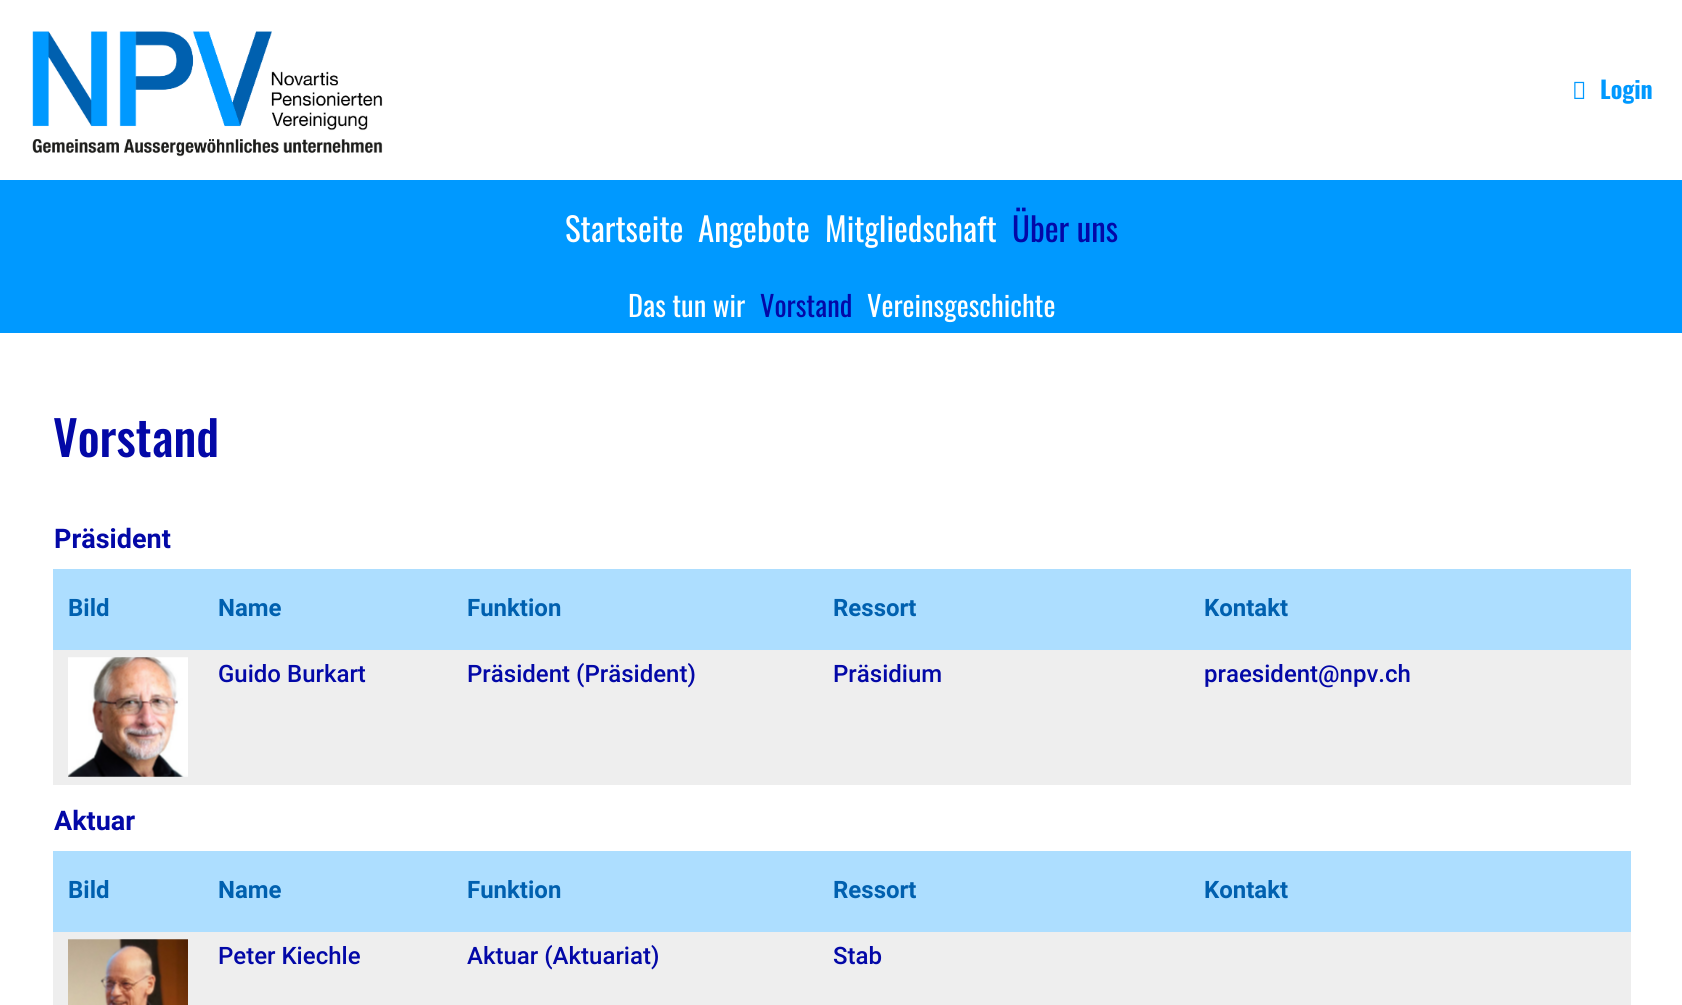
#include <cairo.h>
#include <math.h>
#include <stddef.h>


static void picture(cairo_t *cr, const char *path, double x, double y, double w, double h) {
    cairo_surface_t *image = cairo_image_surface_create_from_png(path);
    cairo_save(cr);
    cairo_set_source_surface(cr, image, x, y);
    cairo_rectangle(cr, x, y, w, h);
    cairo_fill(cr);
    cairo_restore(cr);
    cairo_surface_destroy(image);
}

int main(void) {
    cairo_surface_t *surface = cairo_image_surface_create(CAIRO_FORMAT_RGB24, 1682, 1005);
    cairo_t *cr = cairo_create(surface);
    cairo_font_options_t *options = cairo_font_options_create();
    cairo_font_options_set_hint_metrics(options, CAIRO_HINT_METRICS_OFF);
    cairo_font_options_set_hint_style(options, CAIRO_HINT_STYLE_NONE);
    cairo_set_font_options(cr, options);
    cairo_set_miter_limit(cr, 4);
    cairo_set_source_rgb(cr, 1, 1, 1);
    cairo_paint(cr);
    picture(cr, "img1.png", 32, 31, 351, 126);
    picture(cr, "img2.png", 1574, 81, 11, 18);
    cairo_select_font_face(cr, "Oswald", CAIRO_FONT_SLANT_NORMAL, CAIRO_FONT_WEIGHT_BOLD);
    cairo_set_font_size(cr, 24);
    cairo_set_source_rgb(cr, 0, 0.6, 1);
    cairo_move_to(cr, 1600, 99);
    cairo_show_text(cr, "Login");
    cairo_rectangle(cr, 0, 180, 1682, 153);
    cairo_fill(cr);
    cairo_select_font_face(cr, "Oswald", CAIRO_FONT_SLANT_NORMAL, CAIRO_FONT_WEIGHT_NORMAL);
    cairo_set_font_size(cr, 33);
    cairo_set_source_rgb(cr, 1, 1, 1);
    cairo_move_to(cr, 565, 242);
    cairo_show_text(cr, "Startseite");
    cairo_move_to(cr, 698, 242);
    cairo_show_text(cr, "Angebote");
    cairo_move_to(cr, 825, 242);
    cairo_show_text(cr, "Mitgliedschaft");
    cairo_set_source_rgb(cr, 0.012, 0.035, 0.655);
    cairo_move_to(cr, 1012, 242);
    cairo_show_text(cr, "Über uns");
    cairo_set_font_size(cr, 28.5);
    cairo_set_source_rgb(cr, 1, 1, 1);
    cairo_move_to(cr, 628, 317);
    cairo_show_text(cr, "Das tun wir");
    cairo_set_source_rgb(cr, 0.012, 0.035, 0.655);
    cairo_move_to(cr, 760, 317);
    cairo_show_text(cr, "Vorstand");
    cairo_set_source_rgb(cr, 1, 1, 1);
    cairo_move_to(cr, 867, 317);
    cairo_show_text(cr, "Vereinsgeschichte");
    cairo_select_font_face(cr, "Oswald Medium", CAIRO_FONT_SLANT_NORMAL, CAIRO_FONT_WEIGHT_NORMAL);
    cairo_set_font_size(cr, 48);
    cairo_set_source_rgb(cr, 0.012, 0.035, 0.655);
    cairo_move_to(cr, 53, 457);
    cairo_show_text(cr, "Vorstand");
    cairo_select_font_face(cr, "Roboto", CAIRO_FONT_SLANT_NORMAL, CAIRO_FONT_WEIGHT_BOLD);
    cairo_set_font_size(cr, 27);
    cairo_move_to(cr, 54, 548);
    cairo_show_text(cr, "Präsident");
    cairo_set_source_rgb(cr, 0.678, 0.871, 1);
    cairo_rectangle(cr, 53, 569, 1578, 81);
    cairo_fill(cr);
    cairo_set_font_size(cr, 24);
    cairo_set_source_rgb(cr, 0, 0.376, 0.686);
    cairo_move_to(cr, 68, 616);
    cairo_show_text(cr, "Bild");
    cairo_move_to(cr, 218, 616);
    cairo_show_text(cr, "Name");
    cairo_move_to(cr, 467, 616);
    cairo_show_text(cr, "Funktion");
    cairo_move_to(cr, 833, 616);
    cairo_show_text(cr, "Ressort");
    cairo_move_to(cr, 1204, 616);
    cairo_show_text(cr, "Kontakt");
    cairo_set_source_rgb(cr, 0.933, 0.933, 0.933);
    cairo_rectangle(cr, 53, 650, 1578, 135);
    cairo_fill(cr);
    picture(cr, "img3.png", 68, 657, 120, 120);
    cairo_select_font_face(cr, "Roboto Medium", CAIRO_FONT_SLANT_NORMAL, CAIRO_FONT_WEIGHT_NORMAL);
    cairo_set_source_rgb(cr, 0.012, 0.035, 0.655);
    cairo_move_to(cr, 218, 682);
    cairo_show_text(cr, "Guido Burkart");
    cairo_move_to(cr, 467, 682);
    cairo_show_text(cr, "Präsident (Präsident)");
    cairo_move_to(cr, 833, 682);
    cairo_show_text(cr, "Präsidium");
    cairo_move_to(cr, 1204, 682);
    cairo_show_text(cr, "praesident@npv.ch");
    cairo_select_font_face(cr, "Roboto", CAIRO_FONT_SLANT_NORMAL, CAIRO_FONT_WEIGHT_BOLD);
    cairo_set_font_size(cr, 27);
    cairo_move_to(cr, 54, 830);
    cairo_show_text(cr, "Aktuar");
    cairo_set_source_rgb(cr, 0.678, 0.871, 1);
    cairo_rectangle(cr, 53, 851, 1578, 81);
    cairo_fill(cr);
    cairo_set_font_size(cr, 24);
    cairo_set_source_rgb(cr, 0, 0.376, 0.686);
    cairo_move_to(cr, 68, 898);
    cairo_show_text(cr, "Bild");
    cairo_move_to(cr, 218, 898);
    cairo_show_text(cr, "Name");
    cairo_move_to(cr, 467, 898);
    cairo_show_text(cr, "Funktion");
    cairo_move_to(cr, 833, 898);
    cairo_show_text(cr, "Ressort");
    cairo_move_to(cr, 1204, 898);
    cairo_show_text(cr, "Kontakt");
    cairo_set_source_rgb(cr, 0.933, 0.933, 0.933);
    cairo_rectangle(cr, 53, 932, 1578, 73);
    cairo_fill(cr);
    picture(cr, "img4.png", 68, 939, 120, 66);
    cairo_select_font_face(cr, "Roboto Medium", CAIRO_FONT_SLANT_NORMAL, CAIRO_FONT_WEIGHT_NORMAL);
    cairo_set_source_rgb(cr, 0.012, 0.035, 0.655);
    cairo_move_to(cr, 218, 964);
    cairo_show_text(cr, "Peter Kiechle");
    cairo_move_to(cr, 467, 964);
    cairo_show_text(cr, "Aktuar (Aktuariat)");
    cairo_move_to(cr, 833, 964);
    cairo_show_text(cr, "Stab");
    cairo_surface_write_to_png(surface, "page.png");
    cairo_font_options_destroy(options);
    cairo_destroy(cr);
    cairo_surface_destroy(surface);
    return 0;
}
